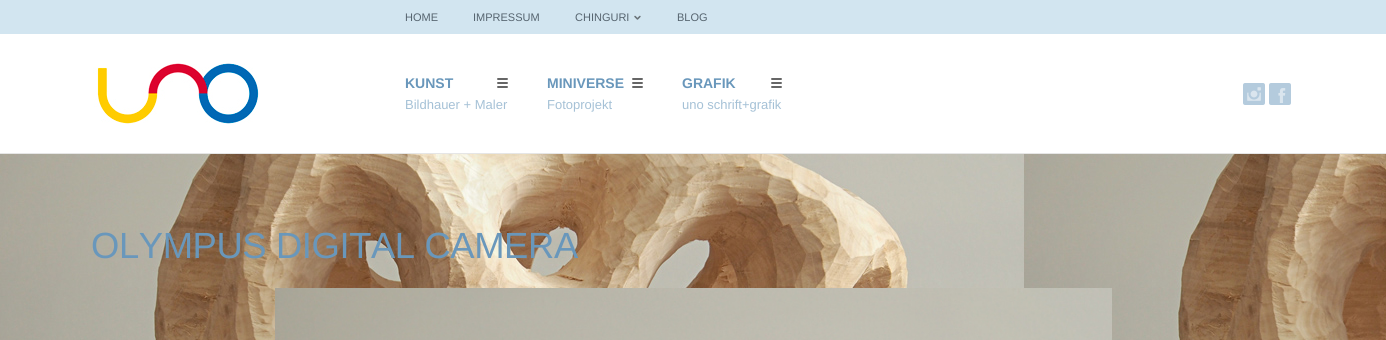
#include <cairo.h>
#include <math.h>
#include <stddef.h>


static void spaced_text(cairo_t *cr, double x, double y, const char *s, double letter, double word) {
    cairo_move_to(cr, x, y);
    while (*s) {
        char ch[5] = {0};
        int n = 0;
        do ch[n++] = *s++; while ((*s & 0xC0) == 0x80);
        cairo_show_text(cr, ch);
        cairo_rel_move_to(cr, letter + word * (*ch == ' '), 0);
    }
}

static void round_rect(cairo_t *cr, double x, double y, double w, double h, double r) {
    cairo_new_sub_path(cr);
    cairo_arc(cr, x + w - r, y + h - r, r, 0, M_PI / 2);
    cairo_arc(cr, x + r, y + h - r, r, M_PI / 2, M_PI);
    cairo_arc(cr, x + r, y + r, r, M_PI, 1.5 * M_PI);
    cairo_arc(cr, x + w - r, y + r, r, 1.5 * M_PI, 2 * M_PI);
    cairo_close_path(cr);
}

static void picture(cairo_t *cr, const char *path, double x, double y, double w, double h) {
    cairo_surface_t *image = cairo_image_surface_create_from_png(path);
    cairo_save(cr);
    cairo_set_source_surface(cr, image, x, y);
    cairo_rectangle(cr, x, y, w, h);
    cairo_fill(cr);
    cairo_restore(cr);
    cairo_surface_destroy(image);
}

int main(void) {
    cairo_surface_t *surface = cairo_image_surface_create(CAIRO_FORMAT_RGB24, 1386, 340);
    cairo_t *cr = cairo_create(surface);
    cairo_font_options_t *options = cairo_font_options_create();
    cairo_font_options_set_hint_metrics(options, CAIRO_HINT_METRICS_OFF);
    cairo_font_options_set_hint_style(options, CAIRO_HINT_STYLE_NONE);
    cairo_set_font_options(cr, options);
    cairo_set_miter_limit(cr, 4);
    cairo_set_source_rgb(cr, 1, 1, 1);
    cairo_paint(cr);
    picture(cr, "img1.png", 0, 154, 1386, 186);
    cairo_set_source_rgb(cr, 0.902, 0.902, 0.902);
    cairo_rectangle(cr, 0, 153, 1386, 1);
    cairo_fill(cr);
    cairo_set_source_rgb(cr, 0.824, 0.898, 0.941);
    cairo_rectangle(cr, 0, 0, 1386, 34);
    cairo_fill(cr);
    cairo_select_font_face(cr, "Liberation Sans", CAIRO_FONT_SLANT_NORMAL, CAIRO_FONT_WEIGHT_NORMAL);
    cairo_set_font_size(cr, 11);
    cairo_set_source_rgb(cr, 0.337, 0.392, 0.435);
    cairo_move_to(cr, 405, 21);
    cairo_show_text(cr, "HOME");
    cairo_move_to(cr, 473, 21);
    cairo_show_text(cr, "IMPRESSUM");
    cairo_move_to(cr, 575, 21);
    cairo_show_text(cr, "CHINGURI");
    picture(cr, "img2.png", 634, 15, 7, 5);
    cairo_move_to(cr, 677, 21);
    cairo_show_text(cr, "BLOG");
    picture(cr, "img3.png", 93, 63, 167, 61);
    cairo_select_font_face(cr, "Liberation Sans", CAIRO_FONT_SLANT_NORMAL, CAIRO_FONT_WEIGHT_BOLD);
    cairo_set_font_size(cr, 14);
    cairo_set_source_rgb(cr, 0.412, 0.592, 0.733);
    cairo_move_to(cr, 405, 88);
    cairo_show_text(cr, "KUNST");
    cairo_select_font_face(cr, "Liberation Sans", CAIRO_FONT_SLANT_NORMAL, CAIRO_FONT_WEIGHT_NORMAL);
    cairo_set_font_size(cr, 13);
    cairo_set_source_rgb(cr, 0.647, 0.757, 0.839);
    cairo_move_to(cr, 405, 109);
    cairo_show_text(cr, "Bildhauer + Maler");
    picture(cr, "img4.png", 497, 78, 11, 10);
    cairo_select_font_face(cr, "Liberation Sans", CAIRO_FONT_SLANT_NORMAL, CAIRO_FONT_WEIGHT_BOLD);
    cairo_set_font_size(cr, 14);
    cairo_set_source_rgb(cr, 0.412, 0.592, 0.733);
    cairo_move_to(cr, 547, 88);
    cairo_show_text(cr, "MINIVERSE");
    cairo_select_font_face(cr, "Liberation Sans", CAIRO_FONT_SLANT_NORMAL, CAIRO_FONT_WEIGHT_NORMAL);
    cairo_set_font_size(cr, 13);
    cairo_set_source_rgb(cr, 0.647, 0.757, 0.839);
    cairo_move_to(cr, 547, 109);
    cairo_show_text(cr, "Fotoprojekt");
    picture(cr, "img4.png", 632, 78, 11, 10);
    cairo_select_font_face(cr, "Liberation Sans", CAIRO_FONT_SLANT_NORMAL, CAIRO_FONT_WEIGHT_BOLD);
    cairo_set_font_size(cr, 14);
    cairo_set_source_rgb(cr, 0.412, 0.592, 0.733);
    cairo_move_to(cr, 682, 88);
    cairo_show_text(cr, "GRAFIK");
    cairo_select_font_face(cr, "Liberation Sans", CAIRO_FONT_SLANT_NORMAL, CAIRO_FONT_WEIGHT_NORMAL);
    cairo_set_font_size(cr, 13);
    cairo_set_source_rgb(cr, 0.647, 0.757, 0.839);
    cairo_move_to(cr, 682, 109);
    cairo_show_text(cr, "uno schrift+grafik");
    picture(cr, "img4.png", 771, 78, 11, 10);
    cairo_set_source_rgb(cr, 0.706, 0.796, 0.867);
    round_rect(cr, 1243, 83, 22, 22, 2);
    cairo_fill(cr);
    picture(cr, "img5.png", 1247, 87, 14, 14);
    round_rect(cr, 1269, 83, 22, 22, 2);
    cairo_fill(cr);
    picture(cr, "img6.png", 1278, 88, 8, 15);
    cairo_set_font_size(cr, 36.4);
    cairo_set_source_rgb(cr, 0.412, 0.592, 0.733);
    spaced_text(cr, 91, 258, "OLYMPUS DIGITAL CAMERA", -0.4, 0);
    picture(cr, "img7.png", 275, 288, 837, 52);
    cairo_surface_write_to_png(surface, "page.png");
    cairo_font_options_destroy(options);
    cairo_destroy(cr);
    cairo_surface_destroy(surface);
    return 0;
}
